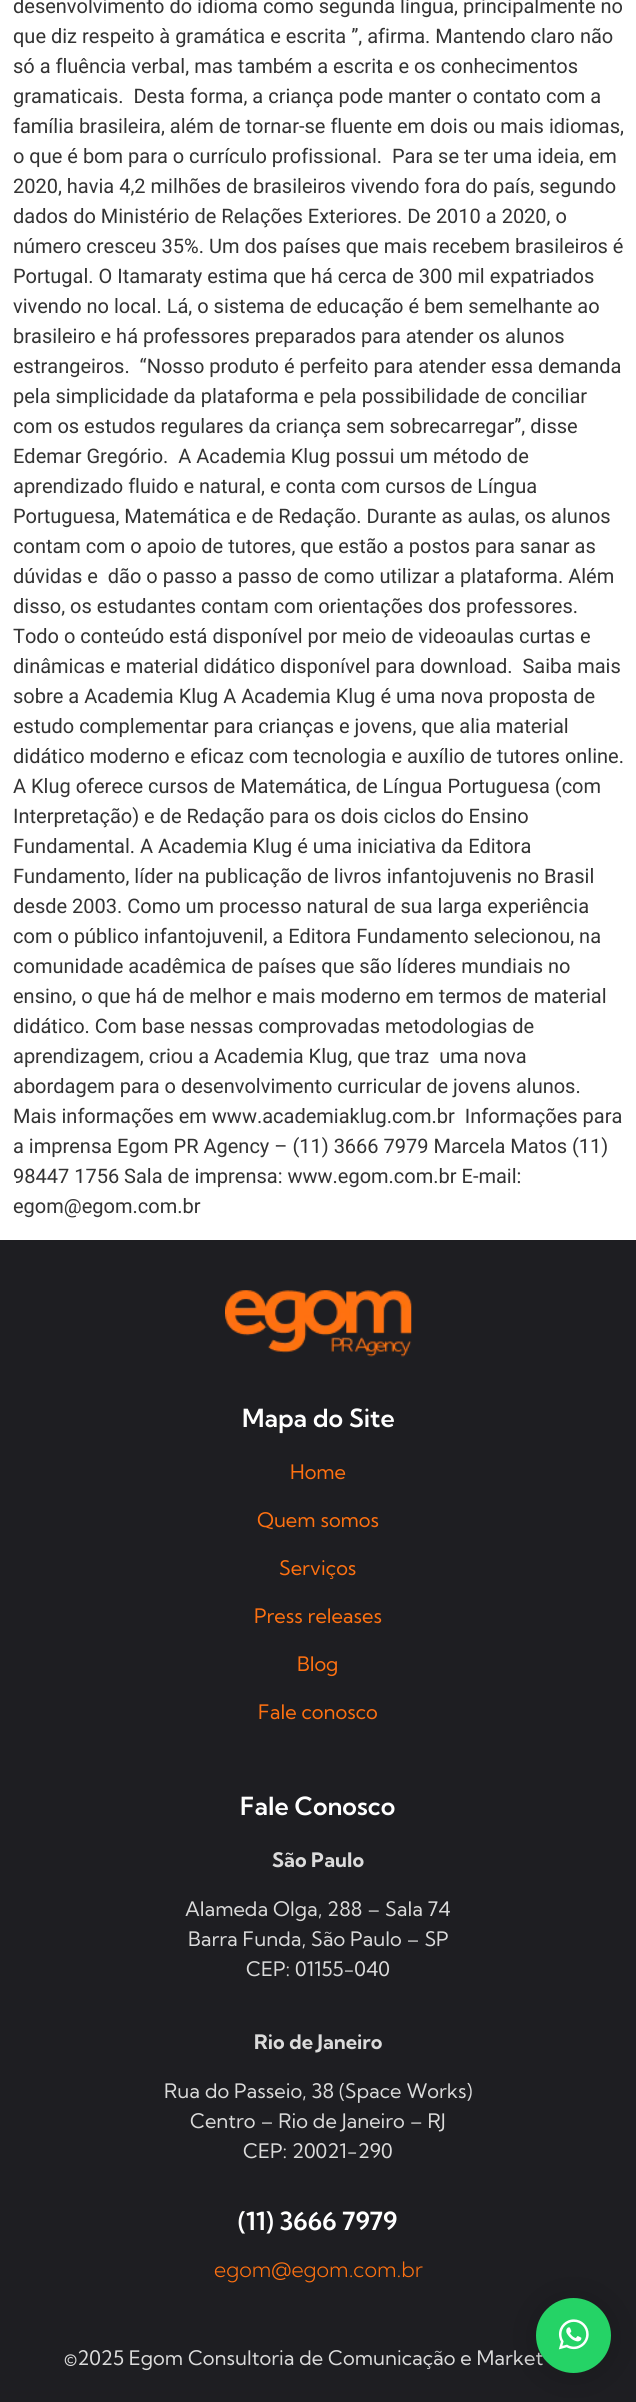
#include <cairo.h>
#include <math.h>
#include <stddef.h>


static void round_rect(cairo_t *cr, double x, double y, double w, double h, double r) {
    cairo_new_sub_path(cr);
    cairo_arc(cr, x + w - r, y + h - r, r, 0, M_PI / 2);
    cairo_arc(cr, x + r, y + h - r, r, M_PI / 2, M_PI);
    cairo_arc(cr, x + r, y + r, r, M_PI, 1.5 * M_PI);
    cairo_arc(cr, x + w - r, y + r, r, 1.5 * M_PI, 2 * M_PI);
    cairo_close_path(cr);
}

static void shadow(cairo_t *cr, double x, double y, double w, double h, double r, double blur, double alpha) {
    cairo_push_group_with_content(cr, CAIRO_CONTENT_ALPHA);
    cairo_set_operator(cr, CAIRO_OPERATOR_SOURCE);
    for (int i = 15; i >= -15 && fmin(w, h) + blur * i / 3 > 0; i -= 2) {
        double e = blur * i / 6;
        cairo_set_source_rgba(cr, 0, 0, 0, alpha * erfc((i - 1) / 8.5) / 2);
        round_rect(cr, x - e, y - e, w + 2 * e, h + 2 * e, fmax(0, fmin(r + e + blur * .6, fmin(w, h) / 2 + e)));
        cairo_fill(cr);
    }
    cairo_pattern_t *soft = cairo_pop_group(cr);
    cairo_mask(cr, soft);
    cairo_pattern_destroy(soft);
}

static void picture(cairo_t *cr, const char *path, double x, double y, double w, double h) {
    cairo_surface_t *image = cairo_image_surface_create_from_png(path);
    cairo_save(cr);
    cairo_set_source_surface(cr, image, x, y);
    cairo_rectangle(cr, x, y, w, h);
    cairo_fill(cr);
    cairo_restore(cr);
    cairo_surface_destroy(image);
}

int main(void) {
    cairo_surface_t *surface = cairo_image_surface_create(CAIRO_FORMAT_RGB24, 636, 2402);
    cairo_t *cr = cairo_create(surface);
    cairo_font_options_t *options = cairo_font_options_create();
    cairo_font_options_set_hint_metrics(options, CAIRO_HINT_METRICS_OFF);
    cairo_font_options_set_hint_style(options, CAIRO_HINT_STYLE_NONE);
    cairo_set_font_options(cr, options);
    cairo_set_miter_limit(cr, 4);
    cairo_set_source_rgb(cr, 1, 1, 1);
    cairo_paint(cr);
    cairo_select_font_face(cr, "Roboto", CAIRO_FONT_SLANT_NORMAL, CAIRO_FONT_WEIGHT_NORMAL);
    cairo_set_font_size(cr, 20);
    cairo_set_source_rgb(cr, 0.2, 0.2, 0.2);
    cairo_move_to(cr, 13, 13);
    cairo_show_text(cr, "desenvolvimento do idioma como segunda língua, principalmente no");
    cairo_move_to(cr, 13, 43);
    cairo_show_text(cr, "que diz respeito à gramática e escrita ”, afirma. Mantendo claro não");
    cairo_move_to(cr, 13, 73);
    cairo_show_text(cr, "só a fluência verbal, mas também a escrita e os conhecimentos");
    cairo_move_to(cr, 13, 103);
    cairo_show_text(cr, "gramaticais.  Desta forma, a criança pode manter o contato com a");
    cairo_move_to(cr, 13, 133);
    cairo_show_text(cr, "família brasileira, além de tornar-se fluente em dois ou mais idiomas,");
    cairo_move_to(cr, 13, 163);
    cairo_show_text(cr, "o que é bom para o currículo profissional.  Para se ter uma ideia, em");
    cairo_move_to(cr, 13, 193);
    cairo_show_text(cr, "2020, havia 4,2 milhões de brasileiros vivendo fora do país, segundo");
    cairo_move_to(cr, 13, 223);
    cairo_show_text(cr, "dados do Ministério de Relações Exteriores. De 2010 a 2020, o");
    cairo_move_to(cr, 13, 253);
    cairo_show_text(cr, "número cresceu 35%. Um dos países que mais recebem brasileiros é");
    cairo_move_to(cr, 13, 283);
    cairo_show_text(cr, "Portugal. O Itamaraty estima que há cerca de 300 mil expatriados");
    cairo_move_to(cr, 13, 313);
    cairo_show_text(cr, "vivendo no local. Lá, o sistema de educação é bem semelhante ao");
    cairo_move_to(cr, 13, 343);
    cairo_show_text(cr, "brasileiro e há professores preparados para atender os alunos");
    cairo_move_to(cr, 13, 373);
    cairo_show_text(cr, "estrangeiros.  “Nosso produto é perfeito para atender essa demanda");
    cairo_move_to(cr, 13, 403);
    cairo_show_text(cr, "pela simplicidade da plataforma e pela possibilidade de conciliar");
    cairo_move_to(cr, 13, 433);
    cairo_show_text(cr, "com os estudos regulares da criança sem sobrecarregar”, disse");
    cairo_move_to(cr, 13, 463);
    cairo_show_text(cr, "Edemar Gregório.  A Academia Klug possui um método de");
    cairo_move_to(cr, 13, 493);
    cairo_show_text(cr, "aprendizado fluido e natural, e conta com cursos de Língua");
    cairo_move_to(cr, 13, 523);
    cairo_show_text(cr, "Portuguesa, Matemática e de Redação. Durante as aulas, os alunos");
    cairo_move_to(cr, 13, 553);
    cairo_show_text(cr, "contam com o apoio de tutores, que estão a postos para sanar as");
    cairo_move_to(cr, 13, 583);
    cairo_show_text(cr, "dúvidas e  dão o passo a passo de como utilizar a plataforma. Além");
    cairo_move_to(cr, 13, 613);
    cairo_show_text(cr, "disso, os estudantes contam com orientações dos professores.");
    cairo_move_to(cr, 13, 643);
    cairo_show_text(cr, "Todo o conteúdo está disponível por meio de videoaulas curtas e");
    cairo_move_to(cr, 13, 673);
    cairo_show_text(cr, "dinâmicas e material didático disponível para download.  Saiba mais");
    cairo_move_to(cr, 13, 703);
    cairo_show_text(cr, "sobre a Academia Klug A Academia Klug é uma nova proposta de");
    cairo_move_to(cr, 13, 733);
    cairo_show_text(cr, "estudo complementar para crianças e jovens, que alia material");
    cairo_move_to(cr, 13, 763);
    cairo_show_text(cr, "didático moderno e eficaz com tecnologia e auxílio de tutores online.");
    cairo_move_to(cr, 13, 793);
    cairo_show_text(cr, "A Klug oferece cursos de Matemática, de Língua Portuguesa (com");
    cairo_move_to(cr, 13, 823);
    cairo_show_text(cr, "Interpretação) e de Redação para os dois ciclos do Ensino");
    cairo_move_to(cr, 13, 853);
    cairo_show_text(cr, "Fundamental. A Academia Klug é uma iniciativa da Editora");
    cairo_move_to(cr, 13, 883);
    cairo_show_text(cr, "Fundamento, líder na publicação de livros infantojuvenis no Brasil");
    cairo_move_to(cr, 13, 913);
    cairo_show_text(cr, "desde 2003. Como um processo natural de sua larga experiência");
    cairo_move_to(cr, 13, 943);
    cairo_show_text(cr, "com o público infantojuvenil, a Editora Fundamento selecionou, na");
    cairo_move_to(cr, 13, 973);
    cairo_show_text(cr, "comunidade acadêmica de países que são líderes mundiais no");
    cairo_move_to(cr, 13, 1003);
    cairo_show_text(cr, "ensino, o que há de melhor e mais moderno em termos de material");
    cairo_move_to(cr, 13, 1033);
    cairo_show_text(cr, "didático. Com base nessas comprovadas metodologias de");
    cairo_move_to(cr, 13, 1063);
    cairo_show_text(cr, "aprendizagem, criou a Academia Klug, que traz  uma nova");
    cairo_move_to(cr, 13, 1093);
    cairo_show_text(cr, "abordagem para o desenvolvimento curricular de jovens alunos.");
    cairo_move_to(cr, 13, 1123);
    cairo_show_text(cr, "Mais informações em www.academiaklug.com.br  Informações para");
    cairo_move_to(cr, 13, 1153);
    cairo_show_text(cr, "a imprensa Egom PR Agency – (11) 3666 7979 Marcela Matos (11)");
    cairo_move_to(cr, 13, 1183);
    cairo_show_text(cr, "98447 1756 Sala de imprensa: www.egom.com.br E-mail:");
    cairo_move_to(cr, 13, 1213);
    cairo_show_text(cr, "egom@egom.com.br");
    cairo_set_source_rgb(cr, 0.118, 0.118, 0.133);
    cairo_rectangle(cr, 0, 1240, 636, 1162);
    cairo_fill(cr);
    picture(cr, "img1.png", 225, 1290, 187, 67);
    cairo_select_font_face(cr, "Kumbh Sans SemiBold", CAIRO_FONT_SLANT_NORMAL, CAIRO_FONT_WEIGHT_NORMAL);
    cairo_set_font_size(cr, 25);
    cairo_set_source_rgb(cr, 1, 1, 1);
    cairo_move_to(cr, 242, 1427);
    cairo_show_text(cr, "Mapa do Site");
    cairo_select_font_face(cr, "Kumbh Sans", CAIRO_FONT_SLANT_NORMAL, CAIRO_FONT_WEIGHT_NORMAL);
    cairo_set_font_size(cr, 20);
    cairo_set_source_rgb(cr, 1, 0.443, 0.067);
    cairo_move_to(cr, 290, 1479);
    cairo_show_text(cr, "Home");
    cairo_move_to(cr, 257, 1527);
    cairo_show_text(cr, "Quem somos");
    cairo_move_to(cr, 279, 1575);
    cairo_show_text(cr, "Serviços");
    cairo_move_to(cr, 254, 1623);
    cairo_show_text(cr, "Press releases");
    cairo_move_to(cr, 297, 1671);
    cairo_show_text(cr, "Blog");
    cairo_move_to(cr, 258, 1719);
    cairo_show_text(cr, "Fale conosco");
    cairo_select_font_face(cr, "Kumbh Sans SemiBold", CAIRO_FONT_SLANT_NORMAL, CAIRO_FONT_WEIGHT_NORMAL);
    cairo_set_font_size(cr, 25);
    cairo_set_source_rgb(cr, 1, 1, 1);
    cairo_move_to(cr, 240, 1815);
    cairo_show_text(cr, "Fale Conosco");
    cairo_select_font_face(cr, "Kumbh Sans", CAIRO_FONT_SLANT_NORMAL, CAIRO_FONT_WEIGHT_BOLD);
    cairo_set_font_size(cr, 20);
    cairo_set_source_rgb(cr, 0.859, 0.859, 0.859);
    cairo_move_to(cr, 272, 1867);
    cairo_show_text(cr, "São Paulo");
    cairo_select_font_face(cr, "Kumbh Sans", CAIRO_FONT_SLANT_NORMAL, CAIRO_FONT_WEIGHT_NORMAL);
    cairo_move_to(cr, 185, 1916);
    cairo_show_text(cr, "Alameda Olga, 288 – Sala 74");
    cairo_move_to(cr, 188, 1946);
    cairo_show_text(cr, "Barra Funda, São Paulo – SP");
    cairo_move_to(cr, 246, 1976);
    cairo_show_text(cr, "CEP: 01155-040");
    cairo_select_font_face(cr, "Kumbh Sans", CAIRO_FONT_SLANT_NORMAL, CAIRO_FONT_WEIGHT_BOLD);
    cairo_move_to(cr, 254, 2049);
    cairo_show_text(cr, "Rio de Janeiro");
    cairo_select_font_face(cr, "Kumbh Sans", CAIRO_FONT_SLANT_NORMAL, CAIRO_FONT_WEIGHT_NORMAL);
    cairo_move_to(cr, 164, 2098);
    cairo_show_text(cr, "Rua do Passeio, 38 (Space Works)");
    cairo_move_to(cr, 190, 2128);
    cairo_show_text(cr, "Centro – Rio de Janeiro – RJ");
    cairo_move_to(cr, 243, 2158);
    cairo_show_text(cr, "CEP: 20021-290");
    cairo_select_font_face(cr, "Kumbh Sans SemiBold", CAIRO_FONT_SLANT_NORMAL, CAIRO_FONT_WEIGHT_NORMAL);
    cairo_set_font_size(cr, 25);
    cairo_set_source_rgb(cr, 1, 1, 1);
    cairo_move_to(cr, 238, 2230);
    cairo_show_text(cr, "(11) 3666 7979");
    cairo_select_font_face(cr, "Kumbh Sans Light", CAIRO_FONT_SLANT_NORMAL, CAIRO_FONT_WEIGHT_NORMAL);
    cairo_set_font_size(cr, 21.25);
    cairo_set_source_rgb(cr, 1, 0.443, 0.067);
    cairo_move_to(cr, 214, 2277);
    cairo_show_text(cr, "egom@egom.com.br");
    cairo_select_font_face(cr, "Kumbh Sans", CAIRO_FONT_SLANT_NORMAL, CAIRO_FONT_WEIGHT_NORMAL);
    cairo_set_font_size(cr, 20);
    cairo_set_source_rgb(cr, 0.859, 0.859, 0.859);
    cairo_move_to(cr, 64, 2365);
    cairo_show_text(cr, "©2025 Egom Consultoria de Comunicação e Market");
    cairo_set_source_rgb(cr, 0, 0, 0);
    shadow(cr, 536, 2300, 75, 75, 37.5, 20, 0.16);
    cairo_set_source_rgb(cr, 0.145, 0.827, 0.4);
    cairo_arc(cr, 573.5, 2335.5, 37.5, 0, 2 * M_PI);
    cairo_fill(cr);
    picture(cr, "img2.png", 558, 2319, 31, 31);
    cairo_surface_write_to_png(surface, "page.png");
    cairo_font_options_destroy(options);
    cairo_destroy(cr);
    cairo_surface_destroy(surface);
    return 0;
}
